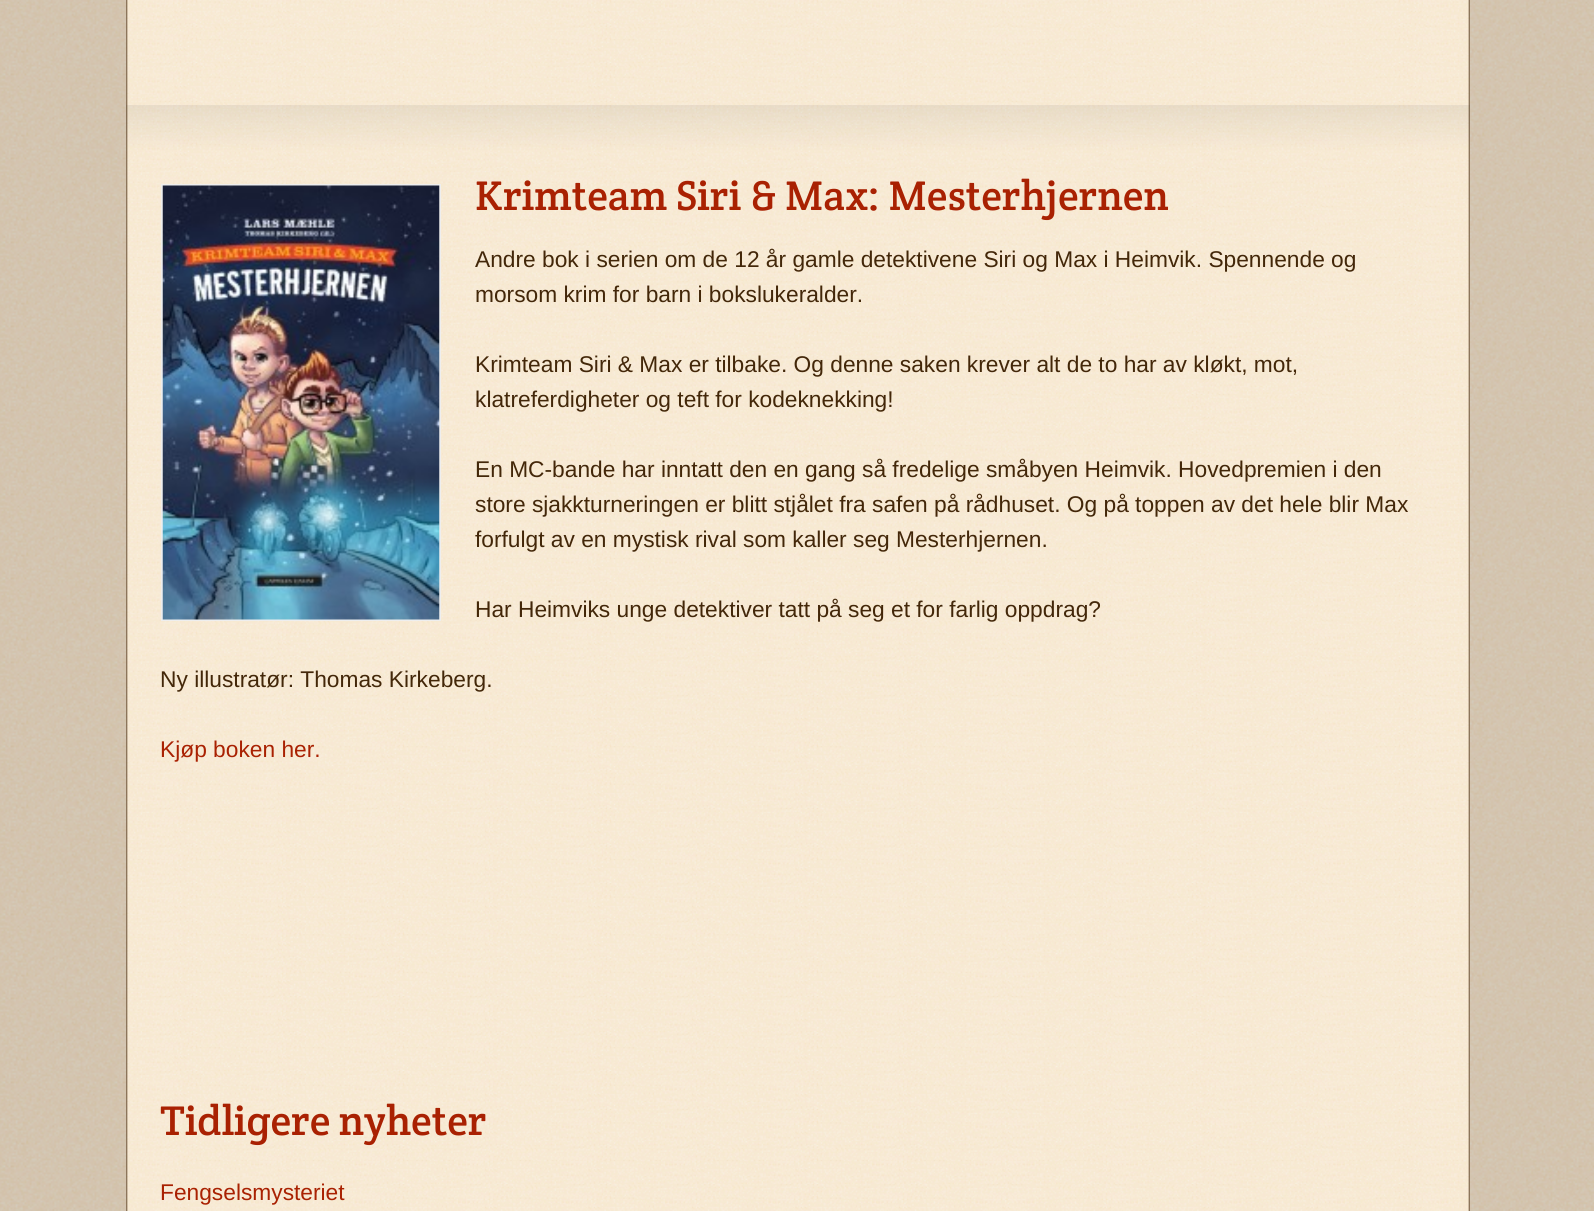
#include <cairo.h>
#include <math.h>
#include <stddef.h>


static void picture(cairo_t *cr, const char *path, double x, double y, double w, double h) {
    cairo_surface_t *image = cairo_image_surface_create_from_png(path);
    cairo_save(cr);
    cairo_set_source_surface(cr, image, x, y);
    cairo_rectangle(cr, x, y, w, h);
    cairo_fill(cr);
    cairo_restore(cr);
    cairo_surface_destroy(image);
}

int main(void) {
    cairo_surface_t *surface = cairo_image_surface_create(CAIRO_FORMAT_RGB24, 1594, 1211);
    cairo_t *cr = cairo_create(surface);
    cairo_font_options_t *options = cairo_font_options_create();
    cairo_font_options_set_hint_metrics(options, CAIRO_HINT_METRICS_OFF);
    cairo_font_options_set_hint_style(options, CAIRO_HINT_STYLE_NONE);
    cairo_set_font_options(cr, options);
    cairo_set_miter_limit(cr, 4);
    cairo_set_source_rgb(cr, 1, 1, 1);
    cairo_paint(cr);
    picture(cr, "img1.png", 0, 0, 1594, 1211);
    picture(cr, "img2.png", 126, 0, 1344, 105);
    picture(cr, "img3.png", 126, 105, 1344, 1106);
    cairo_rectangle(cr, 162, 185, 278, 435);
    cairo_set_source_rgb(cr, 0.933, 0.933, 0.933);
    cairo_stroke(cr);
    picture(cr, "img4.png", 162, 185, 278, 435);
    cairo_select_font_face(cr, "Crete Round", CAIRO_FONT_SLANT_NORMAL, CAIRO_FONT_WEIGHT_NORMAL);
    cairo_set_font_size(cr, 42);
    cairo_set_source_rgb(cr, 0.663, 0.129, 0.008);
    cairo_move_to(cr, 475, 210);
    cairo_show_text(cr, "Krimteam Siri & Max: Mesterhjernen");
    cairo_select_font_face(cr, "Liberation Sans", CAIRO_FONT_SLANT_NORMAL, CAIRO_FONT_WEIGHT_NORMAL);
    cairo_set_font_size(cr, 22.75);
    cairo_set_source_rgb(cr, 0.263, 0.153, 0.039);
    cairo_move_to(cr, 475, 267);
    cairo_show_text(cr, "Andre bok i serien om de 12 år gamle detektivene Siri og Max i Heimvik. Spennende og");
    cairo_move_to(cr, 475, 302);
    cairo_show_text(cr, "morsom krim for barn i bokslukeralder.");
    cairo_move_to(cr, 475, 372);
    cairo_show_text(cr, "Krimteam Siri & Max er tilbake. Og denne saken krever alt de to har av kløkt, mot,");
    cairo_move_to(cr, 475, 407);
    cairo_show_text(cr, "klatreferdigheter og teft for kodeknekking!");
    cairo_move_to(cr, 475, 477);
    cairo_show_text(cr, "En MC-bande har inntatt den en gang så fredelige småbyen Heimvik. Hovedpremien i den");
    cairo_move_to(cr, 475, 512);
    cairo_show_text(cr, "store sjakkturneringen er blitt stjålet fra safen på rådhuset. Og på toppen av det hele blir Max");
    cairo_move_to(cr, 475, 547);
    cairo_show_text(cr, "forfulgt av en mystisk rival som kaller seg Mesterhjernen.");
    cairo_move_to(cr, 475, 617);
    cairo_show_text(cr, "Har Heimviks unge detektiver tatt på seg et for farlig oppdrag?");
    cairo_move_to(cr, 160, 687);
    cairo_show_text(cr, "Ny illustratør: Thomas Kirkeberg.");
    cairo_set_source_rgb(cr, 0.663, 0.129, 0.008);
    cairo_move_to(cr, 160, 757);
    cairo_show_text(cr, "Kjøp boken her.");
    cairo_select_font_face(cr, "Crete Round", CAIRO_FONT_SLANT_NORMAL, CAIRO_FONT_WEIGHT_NORMAL);
    cairo_set_font_size(cr, 42);
    cairo_move_to(cr, 160, 1135);
    cairo_show_text(cr, "Tidligere nyheter");
    cairo_select_font_face(cr, "Liberation Sans", CAIRO_FONT_SLANT_NORMAL, CAIRO_FONT_WEIGHT_NORMAL);
    cairo_set_font_size(cr, 22.75);
    cairo_move_to(cr, 160, 1200);
    cairo_show_text(cr, "Fengselsmysteriet");
    cairo_surface_write_to_png(surface, "page.png");
    cairo_font_options_destroy(options);
    cairo_destroy(cr);
    cairo_surface_destroy(surface);
    return 0;
}
